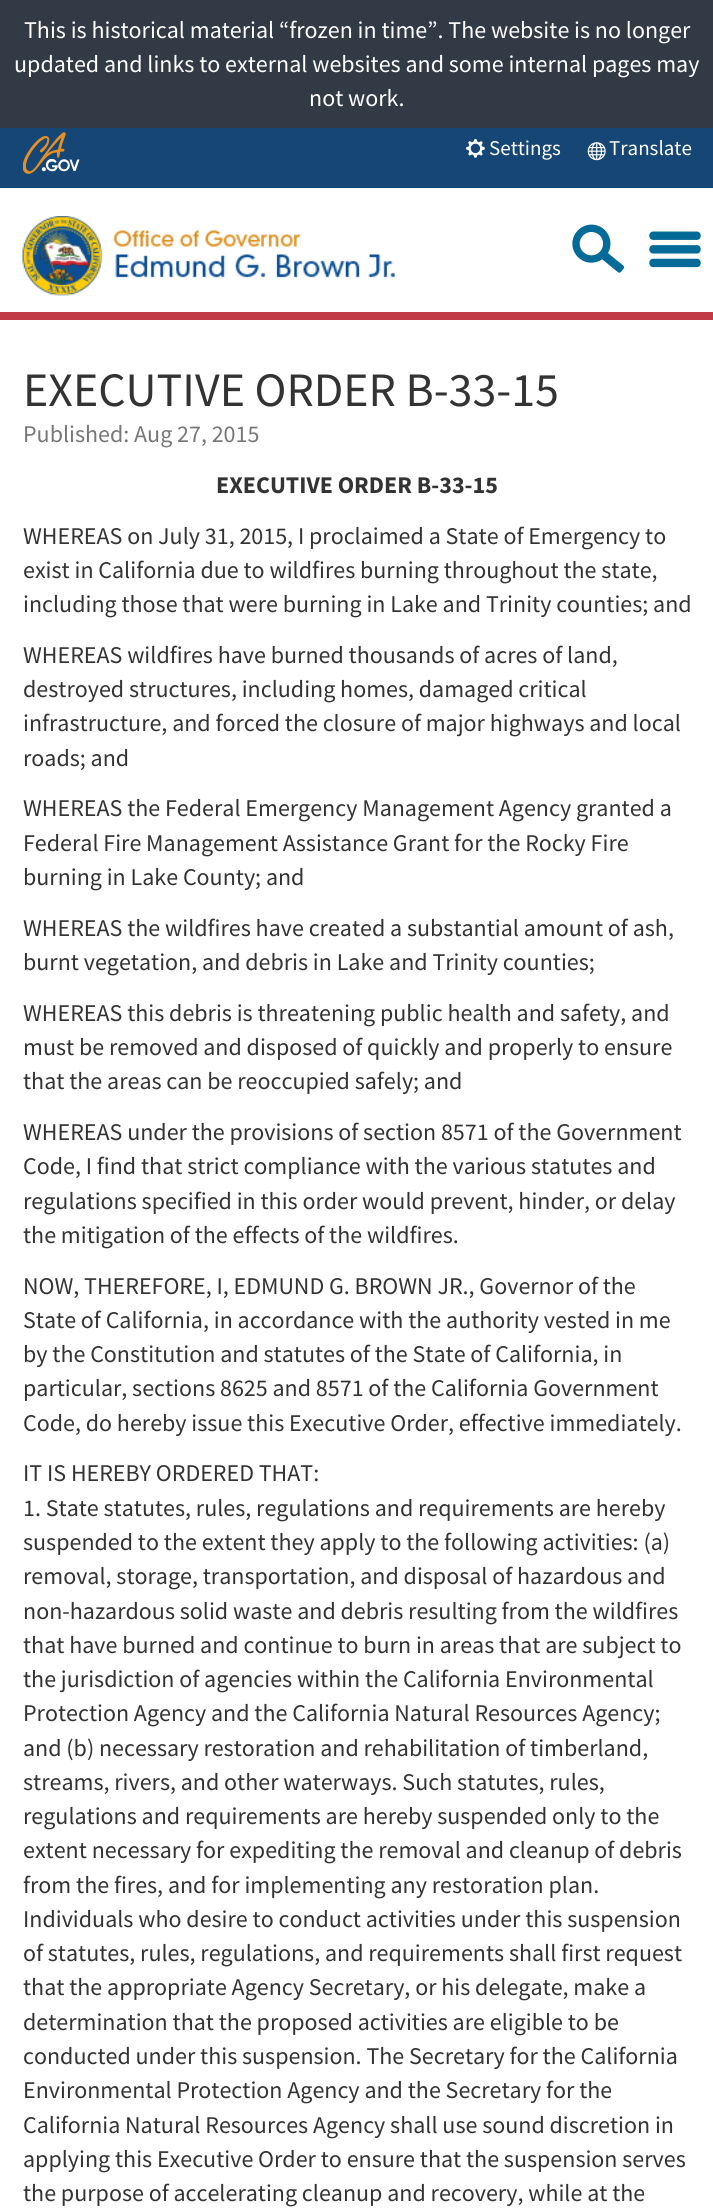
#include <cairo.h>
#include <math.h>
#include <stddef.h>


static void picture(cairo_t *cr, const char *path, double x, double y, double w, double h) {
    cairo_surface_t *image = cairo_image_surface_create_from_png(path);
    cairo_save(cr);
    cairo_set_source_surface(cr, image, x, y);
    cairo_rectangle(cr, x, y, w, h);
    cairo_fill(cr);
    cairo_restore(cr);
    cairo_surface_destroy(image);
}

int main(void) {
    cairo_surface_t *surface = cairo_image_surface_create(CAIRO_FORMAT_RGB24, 713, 2210);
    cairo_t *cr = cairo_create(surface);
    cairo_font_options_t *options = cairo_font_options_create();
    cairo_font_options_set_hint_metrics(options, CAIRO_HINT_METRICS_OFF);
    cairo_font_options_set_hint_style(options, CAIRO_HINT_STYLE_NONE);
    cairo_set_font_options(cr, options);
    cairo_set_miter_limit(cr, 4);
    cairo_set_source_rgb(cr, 1, 1, 1);
    cairo_paint(cr);
    cairo_set_source_rgb(cr, 0.196, 0.227, 0.271);
    cairo_rectangle(cr, 0, 0, 713, 128);
    cairo_fill(cr);
    cairo_select_font_face(cr, "Source Sans Pro", CAIRO_FONT_SLANT_NORMAL, CAIRO_FONT_WEIGHT_NORMAL);
    cairo_set_font_size(cr, 24);
    cairo_set_source_rgb(cr, 1, 1, 1);
    cairo_move_to(cr, 24, 38);
    cairo_show_text(cr, "This is historical material “frozen in time”. The website is no longer");
    cairo_move_to(cr, 14, 72);
    cairo_show_text(cr, "updated and links to external websites and some internal pages may");
    cairo_move_to(cr, 309, 106);
    cairo_show_text(cr, "not work.");
    cairo_set_source_rgb(cr, 0.086, 0.275, 0.459);
    cairo_rectangle(cr, 0, 128, 713, 60);
    cairo_fill(cr);
    picture(cr, "img1.png", 23, 132, 57, 42);
    picture(cr, "img2.png", 466, 139, 19, 19);
    cairo_set_font_size(cr, 21);
    cairo_set_source_rgb(cr, 1, 1, 1);
    cairo_move_to(cr, 489, 155);
    cairo_show_text(cr, "Settings");
    picture(cr, "img3.png", 587, 142, 19, 19);
    cairo_move_to(cr, 609, 155);
    cairo_show_text(cr, "Translate");
    picture(cr, "img4.png", 22, 216, 374, 80);
    picture(cr, "img5.png", 572, 224, 53, 49);
    picture(cr, "img6.png", 649, 231, 52, 37);
    cairo_set_source_rgb(cr, 0.753, 0.231, 0.271);
    cairo_rectangle(cr, 0, 312, 713, 8);
    cairo_fill(cr);
    cairo_set_font_size(cr, 48);
    cairo_set_source_rgb(cr, 0.2, 0.2, 0.2);
    cairo_move_to(cr, 23, 406);
    cairo_show_text(cr, "EXECUTIVE ORDER B-33-15");
    cairo_set_font_size(cr, 24);
    cairo_set_source_rgb(cr, 0.467, 0.467, 0.467);
    cairo_move_to(cr, 23, 442);
    cairo_show_text(cr, "Published: Aug 27, 2015");
    cairo_select_font_face(cr, "Source Sans Pro", CAIRO_FONT_SLANT_NORMAL, CAIRO_FONT_WEIGHT_BOLD);
    cairo_set_source_rgb(cr, 0.2, 0.2, 0.2);
    cairo_move_to(cr, 216, 493);
    cairo_show_text(cr, "EXECUTIVE ORDER B-33-15");
    cairo_select_font_face(cr, "Source Sans Pro", CAIRO_FONT_SLANT_NORMAL, CAIRO_FONT_WEIGHT_NORMAL);
    cairo_move_to(cr, 23, 544);
    cairo_show_text(cr, "WHEREAS on July 31, 2015, I proclaimed a State of Emergency to");
    cairo_move_to(cr, 23, 578);
    cairo_show_text(cr, "exist in California due to wildfires burning throughout the state,");
    cairo_move_to(cr, 23, 612);
    cairo_show_text(cr, "including those that were burning in Lake and Trinity counties; and");
    cairo_move_to(cr, 23, 663);
    cairo_show_text(cr, "WHEREAS wildfires have burned thousands of acres of land,");
    cairo_move_to(cr, 23, 697);
    cairo_show_text(cr, "destroyed structures, including homes, damaged critical");
    cairo_move_to(cr, 23, 731);
    cairo_show_text(cr, "infrastructure, and forced the closure of major highways and local");
    cairo_move_to(cr, 23, 766);
    cairo_show_text(cr, "roads; and");
    cairo_move_to(cr, 23, 816);
    cairo_show_text(cr, "WHEREAS the Federal Emergency Management Agency granted a");
    cairo_move_to(cr, 23, 851);
    cairo_show_text(cr, "Federal Fire Management Assistance Grant for the Rocky Fire");
    cairo_move_to(cr, 23, 885);
    cairo_show_text(cr, "burning in Lake County; and");
    cairo_move_to(cr, 23, 936);
    cairo_show_text(cr, "WHEREAS the wildfires have created a substantial amount of ash,");
    cairo_move_to(cr, 23, 970);
    cairo_show_text(cr, "burnt vegetation, and debris in Lake and Trinity counties;");
    cairo_move_to(cr, 23, 1021);
    cairo_show_text(cr, "WHEREAS this debris is threatening public health and safety, and");
    cairo_move_to(cr, 23, 1055);
    cairo_show_text(cr, "must be removed and disposed of quickly and properly to ensure");
    cairo_move_to(cr, 23, 1089);
    cairo_show_text(cr, "that the areas can be reoccupied safely; and");
    cairo_move_to(cr, 23, 1140);
    cairo_show_text(cr, "WHEREAS under the provisions of section 8571 of the Government");
    cairo_move_to(cr, 23, 1174);
    cairo_show_text(cr, "Code, I find that strict compliance with the various statutes and");
    cairo_move_to(cr, 23, 1209);
    cairo_show_text(cr, "regulations specified in this order would prevent, hinder, or delay");
    cairo_move_to(cr, 23, 1243);
    cairo_show_text(cr, "the mitigation of the effects of the wildfires.");
    cairo_move_to(cr, 23, 1294);
    cairo_show_text(cr, "NOW, THEREFORE, I, EDMUND G. BROWN JR., Governor of the");
    cairo_move_to(cr, 23, 1328);
    cairo_show_text(cr, "State of California, in accordance with the authority vested in me");
    cairo_move_to(cr, 23, 1362);
    cairo_show_text(cr, "by the Constitution and statutes of the State of California, in");
    cairo_move_to(cr, 23, 1396);
    cairo_show_text(cr, "particular, sections 8625 and 8571 of the California Government");
    cairo_move_to(cr, 23, 1431);
    cairo_show_text(cr, "Code, do hereby issue this Executive Order, effective immediately.");
    cairo_move_to(cr, 23, 1481);
    cairo_show_text(cr, "IT IS HEREBY ORDERED THAT:");
    cairo_move_to(cr, 23, 1516);
    cairo_show_text(cr, "1. State statutes, rules, regulations and requirements are hereby");
    cairo_move_to(cr, 23, 1550);
    cairo_show_text(cr, "suspended to the extent they apply to the following activities: (a)");
    cairo_move_to(cr, 23, 1584);
    cairo_show_text(cr, "removal, storage, transportation, and disposal of hazardous and");
    cairo_move_to(cr, 23, 1619);
    cairo_show_text(cr, "non-hazardous solid waste and debris resulting from the wildfires");
    cairo_move_to(cr, 23, 1653);
    cairo_show_text(cr, "that have burned and continue to burn in areas that are subject to");
    cairo_move_to(cr, 23, 1687);
    cairo_show_text(cr, "the jurisdiction of agencies within the California Environmental");
    cairo_move_to(cr, 23, 1721);
    cairo_show_text(cr, "Protection Agency and the California Natural Resources Agency;");
    cairo_move_to(cr, 23, 1756);
    cairo_show_text(cr, "and (b) necessary restoration and rehabilitation of timberland,");
    cairo_move_to(cr, 23, 1790);
    cairo_show_text(cr, "streams, rivers, and other waterways. Such statutes, rules,");
    cairo_move_to(cr, 23, 1824);
    cairo_show_text(cr, "regulations and requirements are hereby suspended only to the");
    cairo_move_to(cr, 23, 1858);
    cairo_show_text(cr, "extent necessary for expediting the removal and cleanup of debris");
    cairo_move_to(cr, 23, 1893);
    cairo_show_text(cr, "from the fires, and for implementing any restoration plan.");
    cairo_move_to(cr, 23, 1927);
    cairo_show_text(cr, "Individuals who desire to conduct activities under this suspension");
    cairo_move_to(cr, 23, 1961);
    cairo_show_text(cr, "of statutes, rules, regulations, and requirements shall first request");
    cairo_move_to(cr, 23, 1995);
    cairo_show_text(cr, "that the appropriate Agency Secretary, or his delegate, make a");
    cairo_move_to(cr, 23, 2030);
    cairo_show_text(cr, "determination that the proposed activities are eligible to be");
    cairo_move_to(cr, 23, 2064);
    cairo_show_text(cr, "conducted under this suspension. The Secretary for the California");
    cairo_move_to(cr, 23, 2098);
    cairo_show_text(cr, "Environmental Protection Agency and the Secretary for the");
    cairo_move_to(cr, 23, 2133);
    cairo_show_text(cr, "California Natural Resources Agency shall use sound discretion in");
    cairo_move_to(cr, 23, 2167);
    cairo_show_text(cr, "applying this Executive Order to ensure that the suspension serves");
    cairo_move_to(cr, 23, 2201);
    cairo_show_text(cr, "the purpose of accelerating cleanup and recovery, while at the");
    cairo_surface_write_to_png(surface, "page.png");
    cairo_font_options_destroy(options);
    cairo_destroy(cr);
    cairo_surface_destroy(surface);
    return 0;
}
